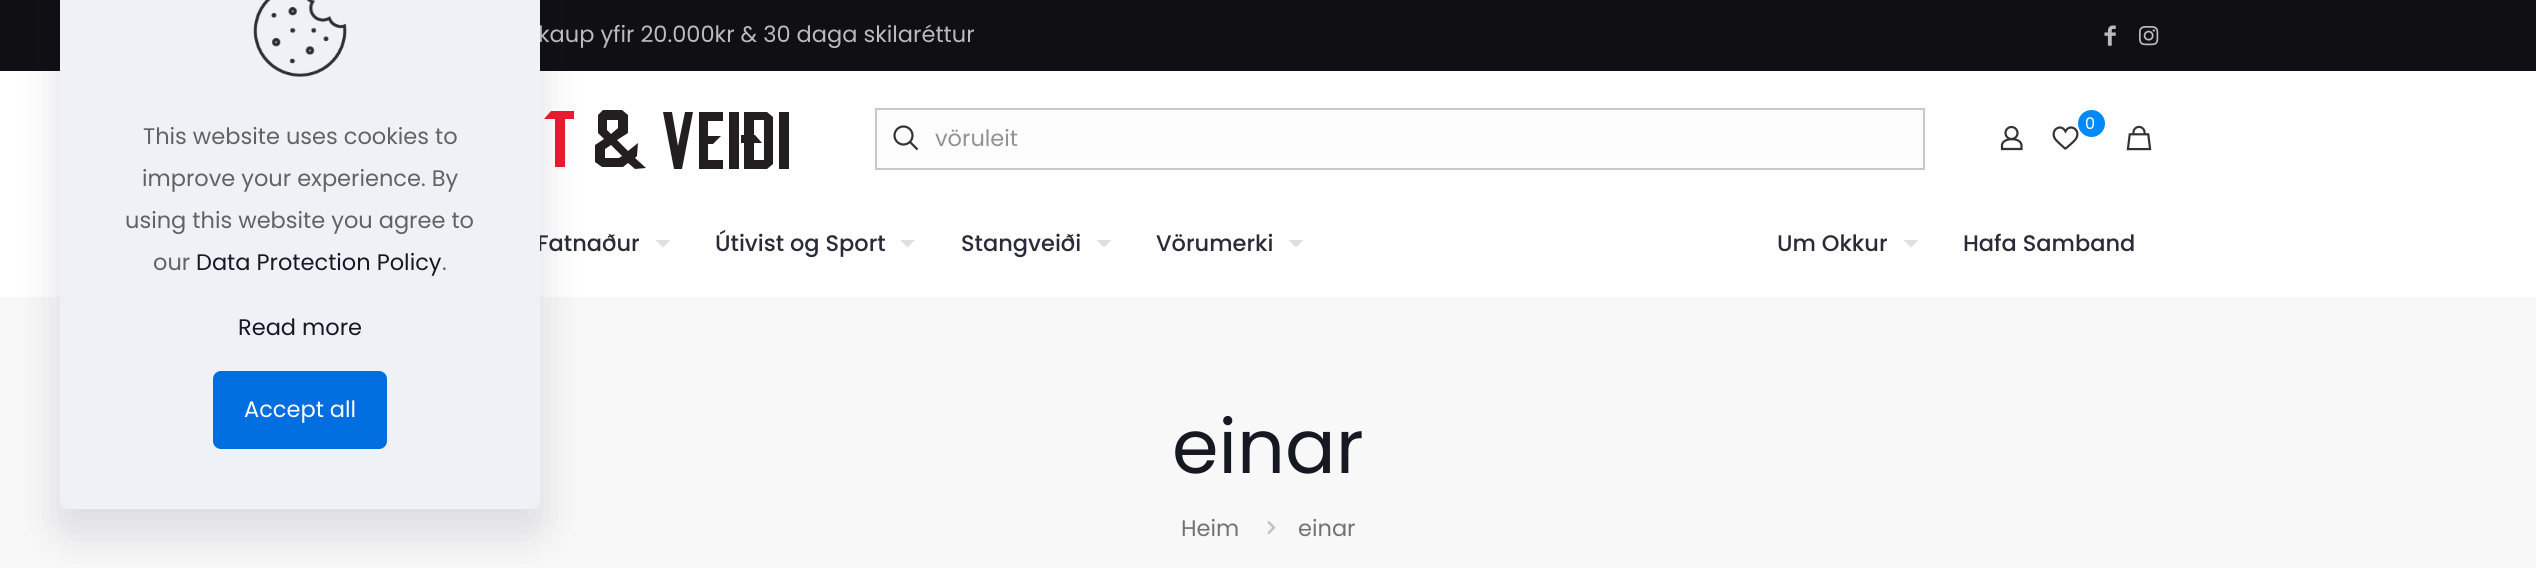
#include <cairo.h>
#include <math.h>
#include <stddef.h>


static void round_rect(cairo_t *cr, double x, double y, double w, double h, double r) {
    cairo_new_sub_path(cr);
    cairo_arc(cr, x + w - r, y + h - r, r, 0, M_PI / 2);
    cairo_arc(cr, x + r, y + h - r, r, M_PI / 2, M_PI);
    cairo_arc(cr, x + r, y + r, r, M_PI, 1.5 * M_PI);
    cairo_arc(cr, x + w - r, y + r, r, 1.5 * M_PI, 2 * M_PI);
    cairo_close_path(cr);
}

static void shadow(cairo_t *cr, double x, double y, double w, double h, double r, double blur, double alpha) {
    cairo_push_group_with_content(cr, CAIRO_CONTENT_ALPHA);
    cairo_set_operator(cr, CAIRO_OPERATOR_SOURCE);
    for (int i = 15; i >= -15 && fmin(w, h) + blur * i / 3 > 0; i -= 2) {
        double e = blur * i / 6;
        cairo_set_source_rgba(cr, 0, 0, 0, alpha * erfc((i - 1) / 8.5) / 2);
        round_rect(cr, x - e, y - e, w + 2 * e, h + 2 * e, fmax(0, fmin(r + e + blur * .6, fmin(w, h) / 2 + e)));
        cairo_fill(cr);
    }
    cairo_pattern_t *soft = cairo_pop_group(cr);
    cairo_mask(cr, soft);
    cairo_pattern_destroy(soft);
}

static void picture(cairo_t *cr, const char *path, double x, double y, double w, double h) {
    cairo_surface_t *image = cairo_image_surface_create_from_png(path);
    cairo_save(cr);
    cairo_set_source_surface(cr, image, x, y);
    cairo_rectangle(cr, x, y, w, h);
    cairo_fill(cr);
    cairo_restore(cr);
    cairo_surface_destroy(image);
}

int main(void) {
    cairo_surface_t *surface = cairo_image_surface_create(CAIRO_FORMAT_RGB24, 2536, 568);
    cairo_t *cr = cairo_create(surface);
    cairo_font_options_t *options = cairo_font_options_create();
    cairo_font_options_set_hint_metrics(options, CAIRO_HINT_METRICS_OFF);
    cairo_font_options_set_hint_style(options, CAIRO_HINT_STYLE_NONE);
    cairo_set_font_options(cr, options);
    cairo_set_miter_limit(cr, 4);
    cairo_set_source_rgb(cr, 0.969, 0.969, 0.969);
    cairo_paint(cr);
    cairo_set_source_rgb(cr, 0.063, 0.063, 0.082);
    cairo_rectangle(cr, 0, 0, 2536, 71);
    cairo_fill(cr);
    cairo_set_source_rgb(cr, 1, 1, 1);
    cairo_rectangle(cr, 0, 71, 2536, 226);
    cairo_fill(cr);
    cairo_set_source_rgb(cr, 0.929, 0.106, 0.184);
    cairo_new_path(cr);
    cairo_move_to(cr, 544, 119);
    cairo_line_to(cr, 555, 119);
    cairo_line_to(cr, 555, 167);
    cairo_line_to(cr, 565, 167);
    cairo_line_to(cr, 565, 119);
    cairo_line_to(cr, 574, 119);
    cairo_line_to(cr, 574, 111);
    cairo_line_to(cr, 551, 111);
    cairo_close_path(cr);
    cairo_fill(cr);
    cairo_set_source_rgb(cr, 0.137, 0.122, 0.125);
    cairo_set_fill_rule(cr, CAIRO_FILL_RULE_EVEN_ODD);
    cairo_new_path(cr);
    cairo_move_to(cr, 635, 158);
    cairo_line_to(cr, 646, 168);
    cairo_line_to(cr, 635, 169);
    cairo_line_to(cr, 628, 163);
    cairo_line_to(cr, 623, 167);
    cairo_line_to(cr, 602, 167);
    cairo_line_to(cr, 595, 162);
    cairo_line_to(cr, 595, 145);
    cairo_line_to(cr, 604, 139);
    cairo_line_to(cr, 598, 133);
    cairo_line_to(cr, 598, 115);
    cairo_line_to(cr, 603, 110);
    cairo_line_to(cr, 622, 110);
    cairo_line_to(cr, 628, 115);
    cairo_line_to(cr, 628, 133);
    cairo_line_to(cr, 617, 140);
    cairo_line_to(cr, 628, 151);
    cairo_line_to(cr, 638, 143);
    cairo_line_to(cr, 637, 156);
    cairo_close_path(cr);
    cairo_move_to(cr, 618, 120);
    cairo_line_to(cr, 607, 120);
    cairo_line_to(cr, 607, 130);
    cairo_line_to(cr, 611, 134);
    cairo_line_to(cr, 618, 128);
    cairo_close_path(cr);
    cairo_move_to(cr, 605, 149);
    cairo_line_to(cr, 605, 158);
    cairo_line_to(cr, 619, 158);
    cairo_line_to(cr, 622, 156);
    cairo_line_to(cr, 611, 145);
    cairo_close_path(cr);
    cairo_fill(cr);
    cairo_set_source_rgb(cr, 0.004, 0.027, 0.153);
    shadow(cr, 60, -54, 480, 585, 8, 22.5, 0.13);
    cairo_select_font_face(cr, "Poppins", CAIRO_FONT_SLANT_NORMAL, CAIRO_FONT_WEIGHT_NORMAL);
    cairo_set_font_size(cr, 22.5);
    cairo_set_source_rgb(cr, 0.733, 0.733, 0.733);
    cairo_move_to(cr, 538, 42);
    cairo_show_text(cr, "kaup yfir 20.000kr & 30 daga skilaréttur");
    cairo_select_font_face(cr, "Poppins Medium", CAIRO_FONT_SLANT_NORMAL, CAIRO_FONT_WEIGHT_NORMAL);
    cairo_set_source_rgb(cr, 0.165, 0.169, 0.224);
    cairo_move_to(cr, 537, 251);
    cairo_show_text(cr, "Fatnaður");
    cairo_set_source_rgb(cr, 0.933, 0.949, 0.961);
    round_rect(cr, 60, -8, 480, 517, 8);
    cairo_fill(cr);
    picture(cr, "img1.png", 253, 0, 94, 77);
    cairo_select_font_face(cr, "Poppins", CAIRO_FONT_SLANT_NORMAL, CAIRO_FONT_WEIGHT_NORMAL);
    cairo_set_source_rgb(cr, 0.384, 0.384, 0.384);
    cairo_move_to(cr, 143, 144);
    cairo_show_text(cr, "This website uses cookies to");
    cairo_move_to(cr, 142, 186);
    cairo_show_text(cr, "improve your experience. By");
    cairo_move_to(cr, 125, 228);
    cairo_show_text(cr, "using this website you agree to");
    cairo_move_to(cr, 153, 270);
    cairo_show_text(cr, "our");
    cairo_set_source_rgb(cr, 0.086, 0.098, 0.133);
    cairo_move_to(cr, 196, 270);
    cairo_show_text(cr, "Data Protection Policy");
    cairo_set_source_rgb(cr, 0.384, 0.384, 0.384);
    cairo_move_to(cr, 442, 270);
    cairo_show_text(cr, ".");
    cairo_set_source_rgb(cr, 0.086, 0.098, 0.133);
    cairo_move_to(cr, 238, 335);
    cairo_show_text(cr, "Read more");
    cairo_set_source_rgb(cr, 0, 0.431, 0.875);
    round_rect(cr, 213, 371, 174, 78, 8);
    cairo_fill(cr);
    cairo_set_source_rgb(cr, 1, 1, 1);
    cairo_move_to(cr, 244, 417);
    cairo_show_text(cr, "Accept all");
    picture(cr, "img2.png", 2104, 25, 12, 21);
    picture(cr, "img3.png", 2139, 26, 20, 20);
    cairo_set_source_rgb(cr, 0.137, 0.122, 0.125);
    cairo_set_fill_rule(cr, CAIRO_FILL_RULE_WINDING);
    cairo_new_path(cr);
    cairo_move_to(cr, 663, 112);
    cairo_line_to(cr, 674, 169);
    cairo_line_to(cr, 682, 169);
    cairo_line_to(cr, 693, 112);
    cairo_line_to(cr, 685, 112);
    cairo_line_to(cr, 678, 146);
    cairo_line_to(cr, 672, 112);
    cairo_close_path(cr);
    cairo_move_to(cr, 699, 112);
    cairo_line_to(cr, 723, 112);
    cairo_line_to(cr, 723, 121);
    cairo_line_to(cr, 708, 121);
    cairo_line_to(cr, 708, 136);
    cairo_line_to(cr, 721, 136);
    cairo_line_to(cr, 713, 144);
    cairo_line_to(cr, 708, 144);
    cairo_line_to(cr, 708, 160);
    cairo_line_to(cr, 723, 160);
    cairo_line_to(cr, 723, 169);
    cairo_line_to(cr, 699, 169);
    cairo_close_path(cr);
    cairo_fill(cr);
    cairo_rectangle(cr, 729, 112, 10, 57);
    cairo_fill(cr);
    cairo_set_fill_rule(cr, CAIRO_FILL_RULE_EVEN_ODD);
    cairo_new_path(cr);
    cairo_move_to(cr, 744, 112);
    cairo_line_to(cr, 767, 112);
    cairo_line_to(cr, 773, 117);
    cairo_line_to(cr, 773, 164);
    cairo_line_to(cr, 767, 169);
    cairo_line_to(cr, 744, 169);
    cairo_line_to(cr, 744, 143);
    cairo_line_to(cr, 741, 143);
    cairo_line_to(cr, 741, 135);
    cairo_line_to(cr, 744, 135);
    cairo_close_path(cr);
    cairo_move_to(cr, 764, 160);
    cairo_line_to(cr, 764, 120);
    cairo_line_to(cr, 754, 120);
    cairo_line_to(cr, 754, 135);
    cairo_line_to(cr, 755, 135);
    cairo_line_to(cr, 762, 143);
    cairo_line_to(cr, 754, 143);
    cairo_line_to(cr, 754, 160);
    cairo_close_path(cr);
    cairo_fill(cr);
    cairo_rectangle(cr, 779, 112, 10, 57);
    cairo_fill(cr);
    picture(cr, "img4.png", 2052, 126, 27, 24);
    cairo_set_source_rgb(cr, 0, 0.537, 0.969);
    cairo_arc(cr, 2091.5, 123.5, 13.5, 0, 2 * M_PI);
    cairo_fill(cr);
    cairo_set_font_size(cr, 16);
    cairo_set_source_rgb(cr, 1, 1, 1);
    cairo_move_to(cr, 2085, 129);
    cairo_show_text(cr, "0");
    cairo_set_source_rgb(cr, 0.988, 0.988, 0.988);
    cairo_rectangle(cr, 876, 109, 1048, 60);
    cairo_fill_preserve(cr);
    cairo_set_source_rgb(cr, 0.784, 0.784, 0.784);
    cairo_stroke(cr);
    cairo_arc(cr, 903.5, 135.5, 9, 0, 2 * M_PI);
    cairo_set_source_rgb(cr, 0.2, 0.2, 0.2);
    cairo_set_line_width(cr, 2.2);
    cairo_stroke(cr);
    cairo_new_path(cr);
    cairo_move_to(cr, 910, 142);
    cairo_line_to(cr, 917.5, 149.5);
    cairo_stroke(cr);
    cairo_set_font_size(cr, 22.5);
    cairo_set_source_rgb(cr, 0.573, 0.573, 0.573);
    cairo_move_to(cr, 935, 146);
    cairo_show_text(cr, "vöruleit");
    cairo_new_path(cr);
    cairo_arc(cr, 2011.5, 133, 6, 0, 2 * M_PI);
    cairo_set_source_rgb(cr, 0.2, 0.2, 0.2);
    cairo_stroke(cr);
    cairo_new_path(cr);
    cairo_move_to(cr, 2021.5, 145.5);
    cairo_line_to(cr, 2021.5, 149);
    cairo_line_to(cr, 2002, 149);
    cairo_line_to(cr, 2002, 144.5);
    cairo_curve_to(cr, 2004, 137, 2021.5, 137.5, 2021.5, 145.5);
    cairo_close_path(cr);
    cairo_stroke(cr);
    picture(cr, "img5.png", 2126, 125, 26, 26);
    cairo_set_source_rgb(cr, 0.878, 0.878, 0.878);
    cairo_set_fill_rule(cr, CAIRO_FILL_RULE_WINDING);
    cairo_new_path(cr);
    cairo_move_to(cr, 655.5, 240);
    cairo_line_to(cr, 670.5, 240);
    cairo_line_to(cr, 663, 247.5);
    cairo_close_path(cr);
    cairo_fill(cr);
    cairo_select_font_face(cr, "Poppins Medium", CAIRO_FONT_SLANT_NORMAL, CAIRO_FONT_WEIGHT_NORMAL);
    cairo_set_source_rgb(cr, 0.165, 0.169, 0.224);
    cairo_move_to(cr, 715, 251);
    cairo_show_text(cr, "Útivist og Sport");
    cairo_set_source_rgb(cr, 0.878, 0.878, 0.878);
    cairo_new_path(cr);
    cairo_move_to(cr, 900, 240);
    cairo_line_to(cr, 915, 240);
    cairo_line_to(cr, 907.5, 247.5);
    cairo_close_path(cr);
    cairo_fill(cr);
    cairo_set_source_rgb(cr, 0.165, 0.169, 0.224);
    cairo_move_to(cr, 961, 251);
    cairo_show_text(cr, "Stangveiði");
    cairo_set_source_rgb(cr, 0.878, 0.878, 0.878);
    cairo_new_path(cr);
    cairo_move_to(cr, 1096.5, 240);
    cairo_line_to(cr, 1111.5, 240);
    cairo_line_to(cr, 1104, 247.5);
    cairo_close_path(cr);
    cairo_fill(cr);
    cairo_set_source_rgb(cr, 0.165, 0.169, 0.224);
    cairo_move_to(cr, 1156, 251);
    cairo_show_text(cr, "Vörumerki");
    cairo_set_source_rgb(cr, 0.878, 0.878, 0.878);
    cairo_new_path(cr);
    cairo_move_to(cr, 1288.5, 240);
    cairo_line_to(cr, 1303.5, 240);
    cairo_line_to(cr, 1296, 247.5);
    cairo_close_path(cr);
    cairo_fill(cr);
    cairo_set_source_rgb(cr, 0.165, 0.169, 0.224);
    cairo_move_to(cr, 1777, 251);
    cairo_show_text(cr, "Um Okkur");
    cairo_set_source_rgb(cr, 0.878, 0.878, 0.878);
    cairo_new_path(cr);
    cairo_move_to(cr, 1903.5, 240);
    cairo_line_to(cr, 1918.5, 240);
    cairo_line_to(cr, 1911, 247.5);
    cairo_close_path(cr);
    cairo_fill(cr);
    cairo_set_source_rgb(cr, 0.165, 0.169, 0.224);
    cairo_move_to(cr, 1963, 251);
    cairo_show_text(cr, "Hafa Samband");
    cairo_select_font_face(cr, "Poppins", CAIRO_FONT_SLANT_NORMAL, CAIRO_FONT_WEIGHT_NORMAL);
    cairo_set_font_size(cr, 75);
    cairo_set_source_rgb(cr, 0.086, 0.098, 0.133);
    cairo_move_to(cr, 1172, 473);
    cairo_show_text(cr, "einar");
    cairo_set_font_size(cr, 22.5);
    cairo_set_source_rgb(cr, 0.439, 0.447, 0.467);
    cairo_move_to(cr, 1181, 536);
    cairo_show_text(cr, "Heim");
    picture(cr, "img6.png", 1267, 521, 9, 13);
    cairo_move_to(cr, 1298, 536);
    cairo_show_text(cr, "einar");
    cairo_surface_write_to_png(surface, "page.png");
    cairo_font_options_destroy(options);
    cairo_destroy(cr);
    cairo_surface_destroy(surface);
    return 0;
}
